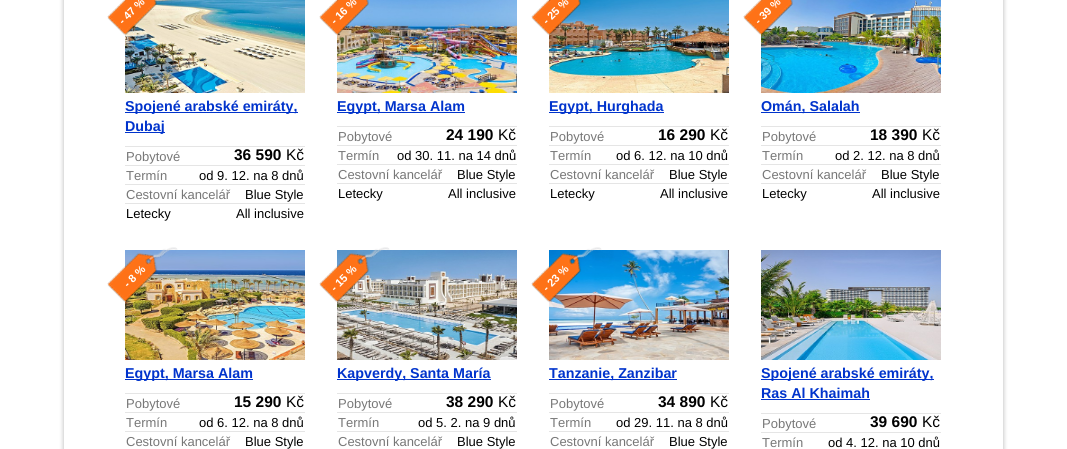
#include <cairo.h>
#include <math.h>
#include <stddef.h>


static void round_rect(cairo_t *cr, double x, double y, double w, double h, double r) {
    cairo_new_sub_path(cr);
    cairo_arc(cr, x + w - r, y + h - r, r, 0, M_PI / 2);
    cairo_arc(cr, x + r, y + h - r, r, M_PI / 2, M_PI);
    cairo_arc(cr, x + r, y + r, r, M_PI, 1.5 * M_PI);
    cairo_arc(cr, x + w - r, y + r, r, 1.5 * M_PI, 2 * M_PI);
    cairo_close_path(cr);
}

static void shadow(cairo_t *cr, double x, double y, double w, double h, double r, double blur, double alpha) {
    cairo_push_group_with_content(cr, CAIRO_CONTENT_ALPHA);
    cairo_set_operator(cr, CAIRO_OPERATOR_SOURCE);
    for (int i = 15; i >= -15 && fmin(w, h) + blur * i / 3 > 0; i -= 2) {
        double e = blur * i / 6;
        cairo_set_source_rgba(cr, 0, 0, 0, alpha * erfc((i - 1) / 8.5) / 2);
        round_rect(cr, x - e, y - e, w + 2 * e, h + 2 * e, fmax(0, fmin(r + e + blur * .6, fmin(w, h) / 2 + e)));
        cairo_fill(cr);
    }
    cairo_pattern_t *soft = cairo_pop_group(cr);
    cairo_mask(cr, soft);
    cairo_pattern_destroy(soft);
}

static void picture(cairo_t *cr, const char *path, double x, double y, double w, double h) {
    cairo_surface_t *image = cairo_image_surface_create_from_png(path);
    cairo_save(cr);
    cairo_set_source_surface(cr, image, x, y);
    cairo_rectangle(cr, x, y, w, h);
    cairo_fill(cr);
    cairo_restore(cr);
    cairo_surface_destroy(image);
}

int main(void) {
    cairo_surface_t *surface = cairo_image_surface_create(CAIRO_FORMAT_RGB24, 1067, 449);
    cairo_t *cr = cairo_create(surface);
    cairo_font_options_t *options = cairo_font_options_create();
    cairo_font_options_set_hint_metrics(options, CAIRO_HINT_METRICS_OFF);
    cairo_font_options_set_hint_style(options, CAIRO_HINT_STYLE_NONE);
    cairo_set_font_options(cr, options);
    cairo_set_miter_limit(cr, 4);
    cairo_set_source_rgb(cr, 1, 1, 1);
    cairo_paint(cr);
    cairo_save(cr);
    cairo_set_fill_rule(cr, CAIRO_FILL_RULE_EVEN_ODD);
    cairo_new_path(cr);
    cairo_move_to(cr, 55, 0);
    cairo_line_to(cr, 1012, 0);
    cairo_line_to(cr, 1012, 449);
    cairo_line_to(cr, 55, 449);
    cairo_close_path(cr);
    cairo_move_to(cr, 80, -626);
    cairo_line_to(cr, 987, -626);
    cairo_curve_to(cr, 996, -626, 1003, -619, 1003, -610);
    cairo_line_to(cr, 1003, 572);
    cairo_curve_to(cr, 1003, 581, 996, 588, 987, 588);
    cairo_line_to(cr, 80, 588);
    cairo_curve_to(cr, 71, 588, 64, 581, 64, 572);
    cairo_line_to(cr, 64, -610);
    cairo_curve_to(cr, 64, -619, 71, -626, 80, -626);
    cairo_close_path(cr);
    cairo_clip(cr);
    cairo_set_source_rgb(cr, 0, 0, 0);
    shadow(cr, 64, -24, 939, 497, 16, 2.5, 0.3);
    cairo_restore(cr);
    picture(cr, "img2.png", 125, 0, 180, 93);
    picture(cr, "img1.png", 107, 0, 50, 36);
    cairo_select_font_face(cr, "Liberation Sans", CAIRO_FONT_SLANT_NORMAL, CAIRO_FONT_WEIGHT_BOLD);
    cairo_set_font_size(cr, 11);
    cairo_set_source_rgb(cr, 1, 1, 1);
    cairo_save(cr);
    cairo_translate(cr, 123, 25);
    cairo_rotate(cr, -45 * M_PI / 180);
    cairo_move_to(cr, 0, 0);
    cairo_show_text(cr, "- 47 %");
    cairo_restore(cr);
    cairo_set_source_rgb(cr, 0, 0.2, 0.8);
    cairo_rectangle(cr, 125, 112, 173, 1);
    cairo_fill(cr);
    cairo_set_font_size(cr, 14.3);
    cairo_move_to(cr, 125, 111);
    cairo_show_text(cr, "Spojené arabské emiráty,");
    cairo_rectangle(cr, 125, 132, 40, 1);
    cairo_fill(cr);
    cairo_move_to(cr, 125, 131);
    cairo_show_text(cr, "Dubaj");
    cairo_set_source_rgb(cr, 0.898, 0.898, 0.898);
    cairo_rectangle(cr, 125, 146, 180, 1);
    cairo_fill(cr);
    cairo_select_font_face(cr, "Liberation Sans", CAIRO_FONT_SLANT_NORMAL, CAIRO_FONT_WEIGHT_NORMAL);
    cairo_set_font_size(cr, 13);
    cairo_set_source_rgb(cr, 0.467, 0.467, 0.467);
    cairo_move_to(cr, 126, 161);
    cairo_show_text(cr, "Pobytové");
    cairo_select_font_face(cr, "Liberation Sans", CAIRO_FONT_SLANT_NORMAL, CAIRO_FONT_WEIGHT_BOLD);
    cairo_set_font_size(cr, 15.5);
    cairo_set_source_rgb(cr, 0, 0, 0);
    cairo_move_to(cr, 234, 160);
    cairo_show_text(cr, "36 590");
    cairo_select_font_face(cr, "Liberation Sans", CAIRO_FONT_SLANT_NORMAL, CAIRO_FONT_WEIGHT_NORMAL);
    cairo_move_to(cr, 286, 160);
    cairo_show_text(cr, "Kč");
    cairo_set_source_rgb(cr, 0.898, 0.898, 0.898);
    cairo_rectangle(cr, 125, 165, 180, 1);
    cairo_fill(cr);
    cairo_set_font_size(cr, 13);
    cairo_set_source_rgb(cr, 0.467, 0.467, 0.467);
    cairo_move_to(cr, 126, 180);
    cairo_show_text(cr, "Termín");
    cairo_set_source_rgb(cr, 0, 0, 0);
    cairo_move_to(cr, 199, 180);
    cairo_show_text(cr, "od 9. 12. na 8 dnů");
    cairo_set_source_rgb(cr, 0.898, 0.898, 0.898);
    cairo_rectangle(cr, 125, 184, 180, 1);
    cairo_fill(cr);
    cairo_set_source_rgb(cr, 0.467, 0.467, 0.467);
    cairo_move_to(cr, 126, 199);
    cairo_show_text(cr, "Cestovní kancelář");
    cairo_set_source_rgb(cr, 0, 0, 0);
    cairo_move_to(cr, 245, 199);
    cairo_show_text(cr, "Blue Style");
    cairo_set_source_rgb(cr, 0.898, 0.898, 0.898);
    cairo_rectangle(cr, 125, 203, 180, 1);
    cairo_fill(cr);
    cairo_set_source_rgb(cr, 0, 0, 0);
    cairo_move_to(cr, 126, 218);
    cairo_show_text(cr, "Letecky");
    cairo_move_to(cr, 236, 218);
    cairo_show_text(cr, "All inclusive");
    picture(cr, "img4.png", 337, 0, 180, 93);
    picture(cr, "img3.png", 319, 0, 50, 36);
    cairo_select_font_face(cr, "Liberation Sans", CAIRO_FONT_SLANT_NORMAL, CAIRO_FONT_WEIGHT_BOLD);
    cairo_set_font_size(cr, 11);
    cairo_set_source_rgb(cr, 1, 1, 1);
    cairo_save(cr);
    cairo_translate(cr, 335, 25);
    cairo_rotate(cr, -45 * M_PI / 180);
    cairo_move_to(cr, 0, 0);
    cairo_show_text(cr, "- 16 %");
    cairo_restore(cr);
    cairo_set_source_rgb(cr, 0, 0.2, 0.8);
    cairo_rectangle(cr, 337, 112, 128, 1);
    cairo_fill(cr);
    cairo_set_font_size(cr, 14.3);
    cairo_move_to(cr, 337, 111);
    cairo_show_text(cr, "Egypt, Marsa Alam");
    cairo_set_source_rgb(cr, 0.898, 0.898, 0.898);
    cairo_rectangle(cr, 337, 126, 180, 1);
    cairo_fill(cr);
    cairo_select_font_face(cr, "Liberation Sans", CAIRO_FONT_SLANT_NORMAL, CAIRO_FONT_WEIGHT_NORMAL);
    cairo_set_font_size(cr, 13);
    cairo_set_source_rgb(cr, 0.467, 0.467, 0.467);
    cairo_move_to(cr, 338, 141);
    cairo_show_text(cr, "Pobytové");
    cairo_select_font_face(cr, "Liberation Sans", CAIRO_FONT_SLANT_NORMAL, CAIRO_FONT_WEIGHT_BOLD);
    cairo_set_font_size(cr, 15.5);
    cairo_set_source_rgb(cr, 0, 0, 0);
    cairo_move_to(cr, 446, 140);
    cairo_show_text(cr, "24 190");
    cairo_select_font_face(cr, "Liberation Sans", CAIRO_FONT_SLANT_NORMAL, CAIRO_FONT_WEIGHT_NORMAL);
    cairo_move_to(cr, 498, 140);
    cairo_show_text(cr, "Kč");
    cairo_set_source_rgb(cr, 0.898, 0.898, 0.898);
    cairo_rectangle(cr, 337, 145, 180, 1);
    cairo_fill(cr);
    cairo_set_font_size(cr, 13);
    cairo_set_source_rgb(cr, 0.467, 0.467, 0.467);
    cairo_move_to(cr, 338, 160);
    cairo_show_text(cr, "Termín");
    cairo_set_source_rgb(cr, 0, 0, 0);
    cairo_move_to(cr, 397, 160);
    cairo_show_text(cr, "od 30. 11. na 14 dnů");
    cairo_set_source_rgb(cr, 0.898, 0.898, 0.898);
    cairo_rectangle(cr, 337, 164, 180, 1);
    cairo_fill(cr);
    cairo_set_source_rgb(cr, 0.467, 0.467, 0.467);
    cairo_move_to(cr, 338, 179);
    cairo_show_text(cr, "Cestovní kancelář");
    cairo_set_source_rgb(cr, 0, 0, 0);
    cairo_move_to(cr, 457, 179);
    cairo_show_text(cr, "Blue Style");
    cairo_set_source_rgb(cr, 0.898, 0.898, 0.898);
    cairo_rectangle(cr, 337, 183, 180, 1);
    cairo_fill(cr);
    cairo_set_source_rgb(cr, 0, 0, 0);
    cairo_move_to(cr, 338, 198);
    cairo_show_text(cr, "Letecky");
    cairo_move_to(cr, 448, 198);
    cairo_show_text(cr, "All inclusive");
    picture(cr, "img6.png", 549, 0, 180, 93);
    picture(cr, "img5.png", 531, 0, 50, 35);
    cairo_select_font_face(cr, "Liberation Sans", CAIRO_FONT_SLANT_NORMAL, CAIRO_FONT_WEIGHT_BOLD);
    cairo_set_font_size(cr, 11);
    cairo_set_source_rgb(cr, 1, 1, 1);
    cairo_save(cr);
    cairo_translate(cr, 547, 25);
    cairo_rotate(cr, -45 * M_PI / 180);
    cairo_move_to(cr, 0, 0);
    cairo_show_text(cr, "- 25 %");
    cairo_restore(cr);
    cairo_set_source_rgb(cr, 0, 0.2, 0.8);
    cairo_rectangle(cr, 549, 112, 115, 1);
    cairo_fill(cr);
    cairo_set_font_size(cr, 14.3);
    cairo_move_to(cr, 549, 111);
    cairo_show_text(cr, "Egypt, Hurghada");
    cairo_set_source_rgb(cr, 0.898, 0.898, 0.898);
    cairo_rectangle(cr, 549, 126, 180, 1);
    cairo_fill(cr);
    cairo_select_font_face(cr, "Liberation Sans", CAIRO_FONT_SLANT_NORMAL, CAIRO_FONT_WEIGHT_NORMAL);
    cairo_set_font_size(cr, 13);
    cairo_set_source_rgb(cr, 0.467, 0.467, 0.467);
    cairo_move_to(cr, 550, 141);
    cairo_show_text(cr, "Pobytové");
    cairo_select_font_face(cr, "Liberation Sans", CAIRO_FONT_SLANT_NORMAL, CAIRO_FONT_WEIGHT_BOLD);
    cairo_set_font_size(cr, 15.5);
    cairo_set_source_rgb(cr, 0, 0, 0);
    cairo_move_to(cr, 658, 140);
    cairo_show_text(cr, "16 290");
    cairo_select_font_face(cr, "Liberation Sans", CAIRO_FONT_SLANT_NORMAL, CAIRO_FONT_WEIGHT_NORMAL);
    cairo_move_to(cr, 710, 140);
    cairo_show_text(cr, "Kč");
    cairo_set_source_rgb(cr, 0.898, 0.898, 0.898);
    cairo_rectangle(cr, 549, 145, 180, 1);
    cairo_fill(cr);
    cairo_set_font_size(cr, 13);
    cairo_set_source_rgb(cr, 0.467, 0.467, 0.467);
    cairo_move_to(cr, 550, 160);
    cairo_show_text(cr, "Termín");
    cairo_set_source_rgb(cr, 0, 0, 0);
    cairo_move_to(cr, 616, 160);
    cairo_show_text(cr, "od 6. 12. na 10 dnů");
    cairo_set_source_rgb(cr, 0.898, 0.898, 0.898);
    cairo_rectangle(cr, 549, 164, 180, 1);
    cairo_fill(cr);
    cairo_set_source_rgb(cr, 0.467, 0.467, 0.467);
    cairo_move_to(cr, 550, 179);
    cairo_show_text(cr, "Cestovní kancelář");
    cairo_set_source_rgb(cr, 0, 0, 0);
    cairo_move_to(cr, 669, 179);
    cairo_show_text(cr, "Blue Style");
    cairo_set_source_rgb(cr, 0.898, 0.898, 0.898);
    cairo_rectangle(cr, 549, 183, 180, 1);
    cairo_fill(cr);
    cairo_set_source_rgb(cr, 0, 0, 0);
    cairo_move_to(cr, 550, 198);
    cairo_show_text(cr, "Letecky");
    cairo_move_to(cr, 660, 198);
    cairo_show_text(cr, "All inclusive");
    picture(cr, "img8.png", 761, 0, 180, 93);
    picture(cr, "img7.png", 743, 0, 50, 35);
    cairo_select_font_face(cr, "Liberation Sans", CAIRO_FONT_SLANT_NORMAL, CAIRO_FONT_WEIGHT_BOLD);
    cairo_set_font_size(cr, 11);
    cairo_set_source_rgb(cr, 1, 1, 1);
    cairo_save(cr);
    cairo_translate(cr, 759, 25);
    cairo_rotate(cr, -45 * M_PI / 180);
    cairo_move_to(cr, 0, 0);
    cairo_show_text(cr, "- 39 %");
    cairo_restore(cr);
    cairo_set_source_rgb(cr, 0, 0.2, 0.8);
    cairo_rectangle(cr, 761, 112, 99, 1);
    cairo_fill(cr);
    cairo_set_font_size(cr, 14.3);
    cairo_move_to(cr, 761, 111);
    cairo_show_text(cr, "Omán, Salalah");
    cairo_set_source_rgb(cr, 0.898, 0.898, 0.898);
    cairo_rectangle(cr, 761, 126, 180, 1);
    cairo_fill(cr);
    cairo_select_font_face(cr, "Liberation Sans", CAIRO_FONT_SLANT_NORMAL, CAIRO_FONT_WEIGHT_NORMAL);
    cairo_set_font_size(cr, 13);
    cairo_set_source_rgb(cr, 0.467, 0.467, 0.467);
    cairo_move_to(cr, 762, 141);
    cairo_show_text(cr, "Pobytové");
    cairo_select_font_face(cr, "Liberation Sans", CAIRO_FONT_SLANT_NORMAL, CAIRO_FONT_WEIGHT_BOLD);
    cairo_set_font_size(cr, 15.5);
    cairo_set_source_rgb(cr, 0, 0, 0);
    cairo_move_to(cr, 870, 140);
    cairo_show_text(cr, "18 390");
    cairo_select_font_face(cr, "Liberation Sans", CAIRO_FONT_SLANT_NORMAL, CAIRO_FONT_WEIGHT_NORMAL);
    cairo_move_to(cr, 922, 140);
    cairo_show_text(cr, "Kč");
    cairo_set_source_rgb(cr, 0.898, 0.898, 0.898);
    cairo_rectangle(cr, 761, 145, 180, 1);
    cairo_fill(cr);
    cairo_set_font_size(cr, 13);
    cairo_set_source_rgb(cr, 0.467, 0.467, 0.467);
    cairo_move_to(cr, 762, 160);
    cairo_show_text(cr, "Termín");
    cairo_set_source_rgb(cr, 0, 0, 0);
    cairo_move_to(cr, 835, 160);
    cairo_show_text(cr, "od 2. 12. na 8 dnů");
    cairo_set_source_rgb(cr, 0.898, 0.898, 0.898);
    cairo_rectangle(cr, 761, 164, 180, 1);
    cairo_fill(cr);
    cairo_set_source_rgb(cr, 0.467, 0.467, 0.467);
    cairo_move_to(cr, 762, 179);
    cairo_show_text(cr, "Cestovní kancelář");
    cairo_set_source_rgb(cr, 0, 0, 0);
    cairo_move_to(cr, 881, 179);
    cairo_show_text(cr, "Blue Style");
    cairo_set_source_rgb(cr, 0.898, 0.898, 0.898);
    cairo_rectangle(cr, 761, 183, 180, 1);
    cairo_fill(cr);
    cairo_set_source_rgb(cr, 0, 0, 0);
    cairo_move_to(cr, 762, 198);
    cairo_show_text(cr, "Letecky");
    cairo_move_to(cr, 872, 198);
    cairo_show_text(cr, "All inclusive");
    picture(cr, "img9.png", 125, 250, 180, 110);
    picture(cr, "img10.png", 107, 247, 71, 55);
    cairo_select_font_face(cr, "Liberation Sans", CAIRO_FONT_SLANT_NORMAL, CAIRO_FONT_WEIGHT_BOLD);
    cairo_set_font_size(cr, 11);
    cairo_set_source_rgb(cr, 1, 1, 1);
    cairo_save(cr);
    cairo_translate(cr, 128, 288);
    cairo_rotate(cr, -45 * M_PI / 180);
    cairo_move_to(cr, 0, 0);
    cairo_show_text(cr, "- 8 %");
    cairo_restore(cr);
    cairo_set_source_rgb(cr, 0, 0.2, 0.8);
    cairo_rectangle(cr, 125, 379, 128, 1);
    cairo_fill(cr);
    cairo_set_font_size(cr, 14.3);
    cairo_move_to(cr, 125, 378);
    cairo_show_text(cr, "Egypt, Marsa Alam");
    cairo_set_source_rgb(cr, 0.898, 0.898, 0.898);
    cairo_rectangle(cr, 125, 393, 180, 1);
    cairo_fill(cr);
    cairo_select_font_face(cr, "Liberation Sans", CAIRO_FONT_SLANT_NORMAL, CAIRO_FONT_WEIGHT_NORMAL);
    cairo_set_font_size(cr, 13);
    cairo_set_source_rgb(cr, 0.467, 0.467, 0.467);
    cairo_move_to(cr, 126, 408);
    cairo_show_text(cr, "Pobytové");
    cairo_select_font_face(cr, "Liberation Sans", CAIRO_FONT_SLANT_NORMAL, CAIRO_FONT_WEIGHT_BOLD);
    cairo_set_font_size(cr, 15.5);
    cairo_set_source_rgb(cr, 0, 0, 0);
    cairo_move_to(cr, 234, 407);
    cairo_show_text(cr, "15 290");
    cairo_select_font_face(cr, "Liberation Sans", CAIRO_FONT_SLANT_NORMAL, CAIRO_FONT_WEIGHT_NORMAL);
    cairo_move_to(cr, 286, 407);
    cairo_show_text(cr, "Kč");
    cairo_set_source_rgb(cr, 0.898, 0.898, 0.898);
    cairo_rectangle(cr, 125, 412, 180, 1);
    cairo_fill(cr);
    cairo_set_font_size(cr, 13);
    cairo_set_source_rgb(cr, 0.467, 0.467, 0.467);
    cairo_move_to(cr, 126, 427);
    cairo_show_text(cr, "Termín");
    cairo_set_source_rgb(cr, 0, 0, 0);
    cairo_move_to(cr, 199, 427);
    cairo_show_text(cr, "od 6. 12. na 8 dnů");
    cairo_set_source_rgb(cr, 0.898, 0.898, 0.898);
    cairo_rectangle(cr, 125, 431, 180, 1);
    cairo_fill(cr);
    cairo_set_source_rgb(cr, 0.467, 0.467, 0.467);
    cairo_move_to(cr, 126, 446);
    cairo_show_text(cr, "Cestovní kancelář");
    cairo_set_source_rgb(cr, 0, 0, 0);
    cairo_move_to(cr, 245, 446);
    cairo_show_text(cr, "Blue Style");
    picture(cr, "img11.png", 337, 250, 180, 110);
    picture(cr, "img12.png", 319, 247, 71, 55);
    cairo_select_font_face(cr, "Liberation Sans", CAIRO_FONT_SLANT_NORMAL, CAIRO_FONT_WEIGHT_BOLD);
    cairo_set_font_size(cr, 11);
    cairo_set_source_rgb(cr, 1, 1, 1);
    cairo_save(cr);
    cairo_translate(cr, 335, 292);
    cairo_rotate(cr, -45 * M_PI / 180);
    cairo_move_to(cr, 0, 0);
    cairo_show_text(cr, "- 15 %");
    cairo_restore(cr);
    cairo_set_source_rgb(cr, 0, 0.2, 0.8);
    cairo_rectangle(cr, 337, 379, 154, 1);
    cairo_fill(cr);
    cairo_set_font_size(cr, 14.3);
    cairo_move_to(cr, 337, 378);
    cairo_show_text(cr, "Kapverdy, Santa María");
    cairo_set_source_rgb(cr, 0.898, 0.898, 0.898);
    cairo_rectangle(cr, 337, 393, 180, 1);
    cairo_fill(cr);
    cairo_select_font_face(cr, "Liberation Sans", CAIRO_FONT_SLANT_NORMAL, CAIRO_FONT_WEIGHT_NORMAL);
    cairo_set_font_size(cr, 13);
    cairo_set_source_rgb(cr, 0.467, 0.467, 0.467);
    cairo_move_to(cr, 338, 408);
    cairo_show_text(cr, "Pobytové");
    cairo_select_font_face(cr, "Liberation Sans", CAIRO_FONT_SLANT_NORMAL, CAIRO_FONT_WEIGHT_BOLD);
    cairo_set_font_size(cr, 15.5);
    cairo_set_source_rgb(cr, 0, 0, 0);
    cairo_move_to(cr, 446, 407);
    cairo_show_text(cr, "38 290");
    cairo_select_font_face(cr, "Liberation Sans", CAIRO_FONT_SLANT_NORMAL, CAIRO_FONT_WEIGHT_NORMAL);
    cairo_move_to(cr, 498, 407);
    cairo_show_text(cr, "Kč");
    cairo_set_source_rgb(cr, 0.898, 0.898, 0.898);
    cairo_rectangle(cr, 337, 412, 180, 1);
    cairo_fill(cr);
    cairo_set_font_size(cr, 13);
    cairo_set_source_rgb(cr, 0.467, 0.467, 0.467);
    cairo_move_to(cr, 338, 427);
    cairo_show_text(cr, "Termín");
    cairo_set_source_rgb(cr, 0, 0, 0);
    cairo_move_to(cr, 418, 427);
    cairo_show_text(cr, "od 5. 2. na 9 dnů");
    cairo_set_source_rgb(cr, 0.898, 0.898, 0.898);
    cairo_rectangle(cr, 337, 431, 180, 1);
    cairo_fill(cr);
    cairo_set_source_rgb(cr, 0.467, 0.467, 0.467);
    cairo_move_to(cr, 338, 446);
    cairo_show_text(cr, "Cestovní kancelář");
    cairo_set_source_rgb(cr, 0, 0, 0);
    cairo_move_to(cr, 457, 446);
    cairo_show_text(cr, "Blue Style");
    picture(cr, "img13.png", 549, 250, 180, 110);
    picture(cr, "img14.png", 531, 247, 71, 56);
    cairo_select_font_face(cr, "Liberation Sans", CAIRO_FONT_SLANT_NORMAL, CAIRO_FONT_WEIGHT_BOLD);
    cairo_set_font_size(cr, 11);
    cairo_set_source_rgb(cr, 1, 1, 1);
    cairo_save(cr);
    cairo_translate(cr, 547, 292);
    cairo_rotate(cr, -45 * M_PI / 180);
    cairo_move_to(cr, 0, 0);
    cairo_show_text(cr, "- 23 %");
    cairo_restore(cr);
    cairo_set_source_rgb(cr, 0, 0.2, 0.8);
    cairo_rectangle(cr, 549, 379, 128, 1);
    cairo_fill(cr);
    cairo_set_font_size(cr, 14.3);
    cairo_move_to(cr, 549, 378);
    cairo_show_text(cr, "Tanzanie, Zanzibar");
    cairo_set_source_rgb(cr, 0.898, 0.898, 0.898);
    cairo_rectangle(cr, 549, 393, 180, 1);
    cairo_fill(cr);
    cairo_select_font_face(cr, "Liberation Sans", CAIRO_FONT_SLANT_NORMAL, CAIRO_FONT_WEIGHT_NORMAL);
    cairo_set_font_size(cr, 13);
    cairo_set_source_rgb(cr, 0.467, 0.467, 0.467);
    cairo_move_to(cr, 550, 408);
    cairo_show_text(cr, "Pobytové");
    cairo_select_font_face(cr, "Liberation Sans", CAIRO_FONT_SLANT_NORMAL, CAIRO_FONT_WEIGHT_BOLD);
    cairo_set_font_size(cr, 15.5);
    cairo_set_source_rgb(cr, 0, 0, 0);
    cairo_move_to(cr, 658, 407);
    cairo_show_text(cr, "34 890");
    cairo_select_font_face(cr, "Liberation Sans", CAIRO_FONT_SLANT_NORMAL, CAIRO_FONT_WEIGHT_NORMAL);
    cairo_move_to(cr, 710, 407);
    cairo_show_text(cr, "Kč");
    cairo_set_source_rgb(cr, 0.898, 0.898, 0.898);
    cairo_rectangle(cr, 549, 412, 180, 1);
    cairo_fill(cr);
    cairo_set_font_size(cr, 13);
    cairo_set_source_rgb(cr, 0.467, 0.467, 0.467);
    cairo_move_to(cr, 550, 427);
    cairo_show_text(cr, "Termín");
    cairo_set_source_rgb(cr, 0, 0, 0);
    cairo_move_to(cr, 616, 427);
    cairo_show_text(cr, "od 29. 11. na 8 dnů");
    cairo_set_source_rgb(cr, 0.898, 0.898, 0.898);
    cairo_rectangle(cr, 549, 431, 180, 1);
    cairo_fill(cr);
    cairo_set_source_rgb(cr, 0.467, 0.467, 0.467);
    cairo_move_to(cr, 550, 446);
    cairo_show_text(cr, "Cestovní kancelář");
    cairo_set_source_rgb(cr, 0, 0, 0);
    cairo_move_to(cr, 669, 446);
    cairo_show_text(cr, "Blue Style");
    picture(cr, "img15.png", 761, 250, 180, 110);
    cairo_set_source_rgb(cr, 0, 0.2, 0.8);
    cairo_rectangle(cr, 761, 379, 173, 1);
    cairo_fill(cr);
    cairo_select_font_face(cr, "Liberation Sans", CAIRO_FONT_SLANT_NORMAL, CAIRO_FONT_WEIGHT_BOLD);
    cairo_set_font_size(cr, 14.3);
    cairo_move_to(cr, 761, 378);
    cairo_show_text(cr, "Spojené arabské emiráty,");
    cairo_move_to(cr, 761, 398);
    cairo_show_text(cr, "Ras Al Khaimah");
    cairo_rectangle(cr, 761, 399, 109, 1);
    cairo_fill(cr);
    cairo_set_source_rgb(cr, 0.898, 0.898, 0.898);
    cairo_rectangle(cr, 761, 413, 180, 1);
    cairo_fill(cr);
    cairo_select_font_face(cr, "Liberation Sans", CAIRO_FONT_SLANT_NORMAL, CAIRO_FONT_WEIGHT_NORMAL);
    cairo_set_font_size(cr, 13);
    cairo_set_source_rgb(cr, 0.467, 0.467, 0.467);
    cairo_move_to(cr, 762, 428);
    cairo_show_text(cr, "Pobytové");
    cairo_select_font_face(cr, "Liberation Sans", CAIRO_FONT_SLANT_NORMAL, CAIRO_FONT_WEIGHT_BOLD);
    cairo_set_font_size(cr, 15.5);
    cairo_set_source_rgb(cr, 0, 0, 0);
    cairo_move_to(cr, 870, 427);
    cairo_show_text(cr, "39 690");
    cairo_select_font_face(cr, "Liberation Sans", CAIRO_FONT_SLANT_NORMAL, CAIRO_FONT_WEIGHT_NORMAL);
    cairo_move_to(cr, 922, 427);
    cairo_show_text(cr, "Kč");
    cairo_set_source_rgb(cr, 0.898, 0.898, 0.898);
    cairo_rectangle(cr, 761, 432, 180, 1);
    cairo_fill(cr);
    cairo_set_font_size(cr, 13);
    cairo_set_source_rgb(cr, 0.467, 0.467, 0.467);
    cairo_move_to(cr, 762, 447);
    cairo_show_text(cr, "Termín");
    cairo_set_source_rgb(cr, 0, 0, 0);
    cairo_move_to(cr, 828, 447);
    cairo_show_text(cr, "od 4. 12. na 10 dnů");
    cairo_surface_write_to_png(surface, "page.png");
    cairo_font_options_destroy(options);
    cairo_destroy(cr);
    cairo_surface_destroy(surface);
    return 0;
}
